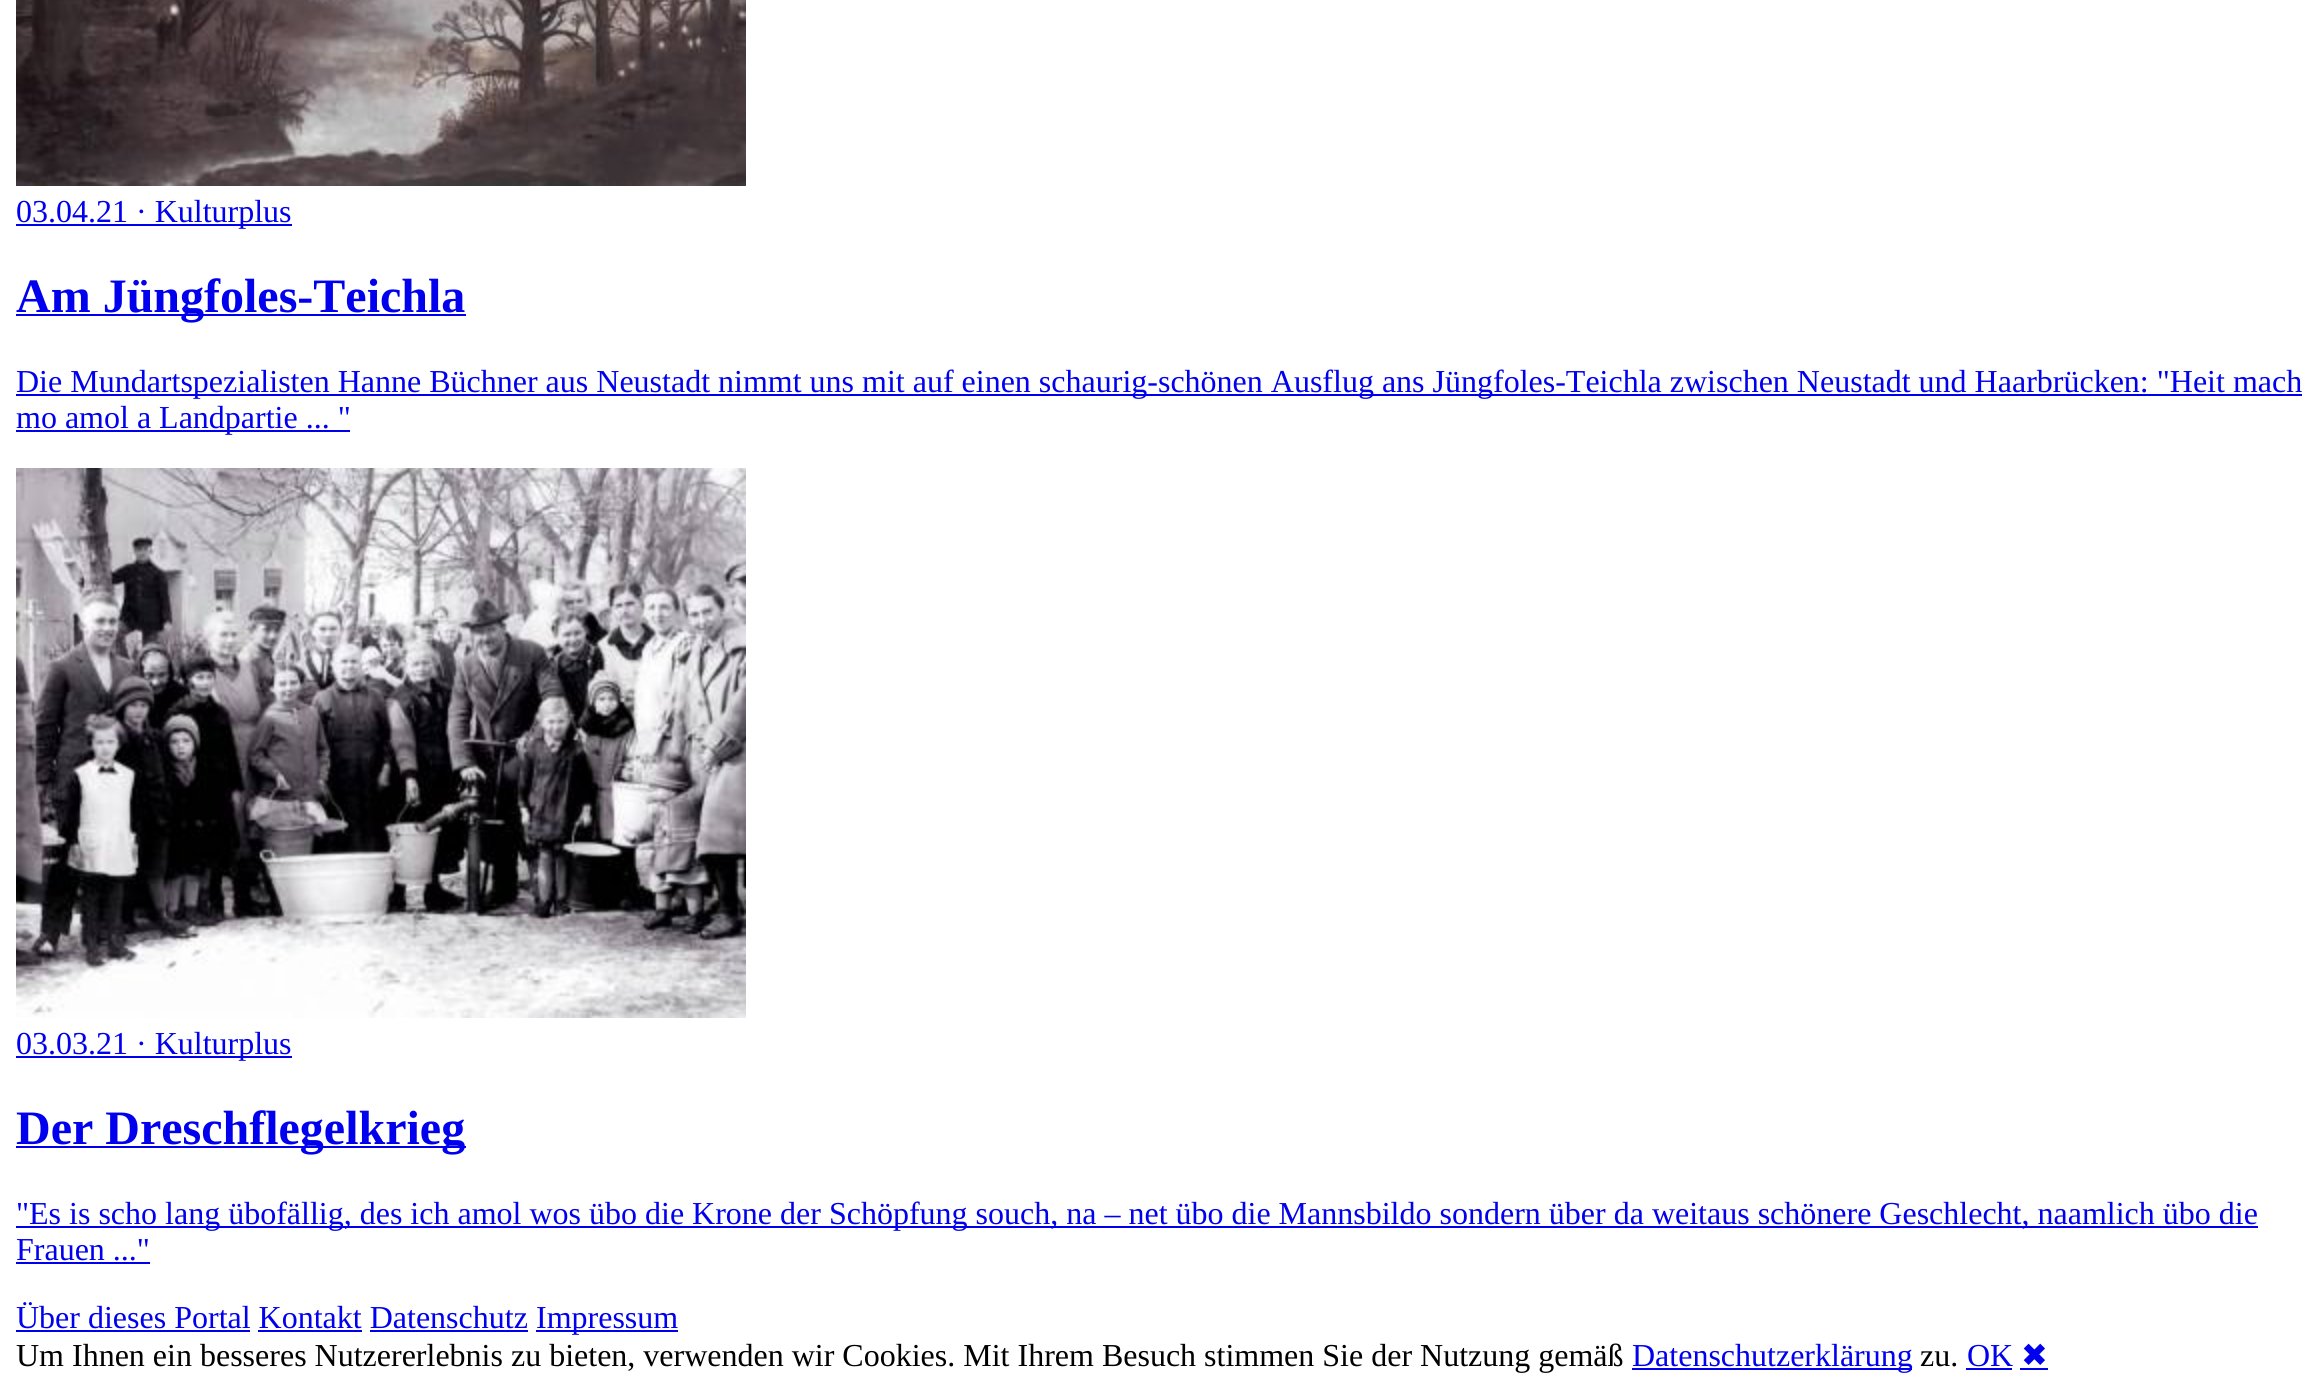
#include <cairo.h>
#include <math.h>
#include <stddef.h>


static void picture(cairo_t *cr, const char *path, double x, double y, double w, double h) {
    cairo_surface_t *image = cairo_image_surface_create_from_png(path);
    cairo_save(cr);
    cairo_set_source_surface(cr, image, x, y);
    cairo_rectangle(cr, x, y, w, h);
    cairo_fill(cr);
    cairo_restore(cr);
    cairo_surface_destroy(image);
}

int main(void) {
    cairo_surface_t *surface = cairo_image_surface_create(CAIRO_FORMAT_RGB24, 2324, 1389);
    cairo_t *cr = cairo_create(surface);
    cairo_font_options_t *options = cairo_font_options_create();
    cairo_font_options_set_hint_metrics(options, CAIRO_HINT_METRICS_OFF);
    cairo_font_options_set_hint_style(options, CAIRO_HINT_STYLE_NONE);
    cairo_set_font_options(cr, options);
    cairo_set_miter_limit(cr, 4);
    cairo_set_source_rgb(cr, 1, 1, 1);
    cairo_paint(cr);
    picture(cr, "img1.png", 16, 0, 730, 186);
    cairo_set_source_rgb(cr, 0, 0, 0.933);
    cairo_rectangle(cr, 16, 224, 276, 2);
    cairo_fill(cr);
    cairo_select_font_face(cr, "Liberation Serif", CAIRO_FONT_SLANT_NORMAL, CAIRO_FONT_WEIGHT_NORMAL);
    cairo_set_font_size(cr, 32);
    cairo_move_to(cr, 16, 222);
    cairo_show_text(cr, "03.04.21 · Kulturplus");
    cairo_rectangle(cr, 16, 314, 450, 2);
    cairo_fill(cr);
    cairo_select_font_face(cr, "Liberation Serif", CAIRO_FONT_SLANT_NORMAL, CAIRO_FONT_WEIGHT_BOLD);
    cairo_set_font_size(cr, 48);
    cairo_move_to(cr, 16, 312);
    cairo_show_text(cr, "Am Jüngfoles-Teichla");
    cairo_rectangle(cr, 16, 394, 2286, 2);
    cairo_fill(cr);
    cairo_select_font_face(cr, "Liberation Serif", CAIRO_FONT_SLANT_NORMAL, CAIRO_FONT_WEIGHT_NORMAL);
    cairo_set_font_size(cr, 32);
    cairo_move_to(cr, 16, 392);
    cairo_show_text(cr, "Die Mundartspezialisten Hanne Büchner aus Neustadt nimmt uns mit auf einen schaurig-schönen Ausflug ans Jüngfoles-Teichla zwischen Neustadt und Haarbrücken: \"Heit mach");
    cairo_rectangle(cr, 16, 430, 334, 2);
    cairo_fill(cr);
    cairo_move_to(cr, 16, 428);
    cairo_show_text(cr, "mo amol a Landpartie ... \"");
    picture(cr, "img2.png", 16, 468, 730, 550);
    cairo_rectangle(cr, 16, 1056, 276, 2);
    cairo_fill(cr);
    cairo_move_to(cr, 16, 1054);
    cairo_show_text(cr, "03.03.21 · Kulturplus");
    cairo_rectangle(cr, 16, 1146, 450, 2);
    cairo_fill(cr);
    cairo_select_font_face(cr, "Liberation Serif", CAIRO_FONT_SLANT_NORMAL, CAIRO_FONT_WEIGHT_BOLD);
    cairo_set_font_size(cr, 48);
    cairo_move_to(cr, 16, 1144);
    cairo_show_text(cr, "Der Dreschflegelkrieg");
    cairo_rectangle(cr, 16, 1226, 2242, 2);
    cairo_fill(cr);
    cairo_select_font_face(cr, "Liberation Serif", CAIRO_FONT_SLANT_NORMAL, CAIRO_FONT_WEIGHT_NORMAL);
    cairo_set_font_size(cr, 32);
    cairo_move_to(cr, 16, 1224);
    cairo_show_text(cr, "\"Es is scho lang übofällig, des ich amol wos übo die Krone der Schöpfung souch, na – net übo die Mannsbildo sondern über da weitaus schönere Geschlecht, naamlich übo die");
    cairo_move_to(cr, 16, 1260);
    cairo_show_text(cr, "Frauen ...\"");
    cairo_rectangle(cr, 16, 1262, 134, 2);
    cairo_fill(cr);
    cairo_move_to(cr, 16, 1328);
    cairo_show_text(cr, "Über dieses Portal Kontakt Datenschutz");
    cairo_rectangle(cr, 16, 1330, 234, 2);
    cairo_fill(cr);
    cairo_rectangle(cr, 536, 1330, 142, 2);
    cairo_fill(cr);
    cairo_move_to(cr, 536, 1328);
    cairo_show_text(cr, "Impressum");
    cairo_rectangle(cr, 258, 1330, 104, 2);
    cairo_fill(cr);
    cairo_rectangle(cr, 370, 1330, 158, 2);
    cairo_fill(cr);
    cairo_set_source_rgb(cr, 0, 0, 0);
    cairo_move_to(cr, 16, 1366);
    cairo_show_text(cr, "Um Ihnen ein besseres Nutzererlebnis zu bieten, verwenden wir Cookies. Mit Ihrem Besuch stimmen Sie der Nutzung gemäß");
    cairo_set_source_rgb(cr, 0, 0, 0.933);
    cairo_rectangle(cr, 1632, 1368, 280, 2);
    cairo_fill(cr);
    cairo_move_to(cr, 1632, 1366);
    cairo_show_text(cr, "Datenschutzerklärung");
    cairo_set_source_rgb(cr, 0, 0, 0);
    cairo_move_to(cr, 1920, 1366);
    cairo_show_text(cr, "zu.");
    cairo_set_source_rgb(cr, 0, 0, 0.933);
    cairo_move_to(cr, 1967, 1366);
    cairo_show_text(cr, "OK");
    cairo_rectangle(cr, 1966, 1368, 46, 2);
    cairo_fill(cr);
    cairo_select_font_face(cr, "DejaVu Sans", CAIRO_FONT_SLANT_NORMAL, CAIRO_FONT_WEIGHT_NORMAL);
    cairo_move_to(cr, 2021, 1366);
    cairo_show_text(cr, "✖");
    cairo_rectangle(cr, 2020, 1368, 28, 2);
    cairo_fill(cr);
    cairo_surface_write_to_png(surface, "page.png");
    cairo_font_options_destroy(options);
    cairo_destroy(cr);
    cairo_surface_destroy(surface);
    return 0;
}
